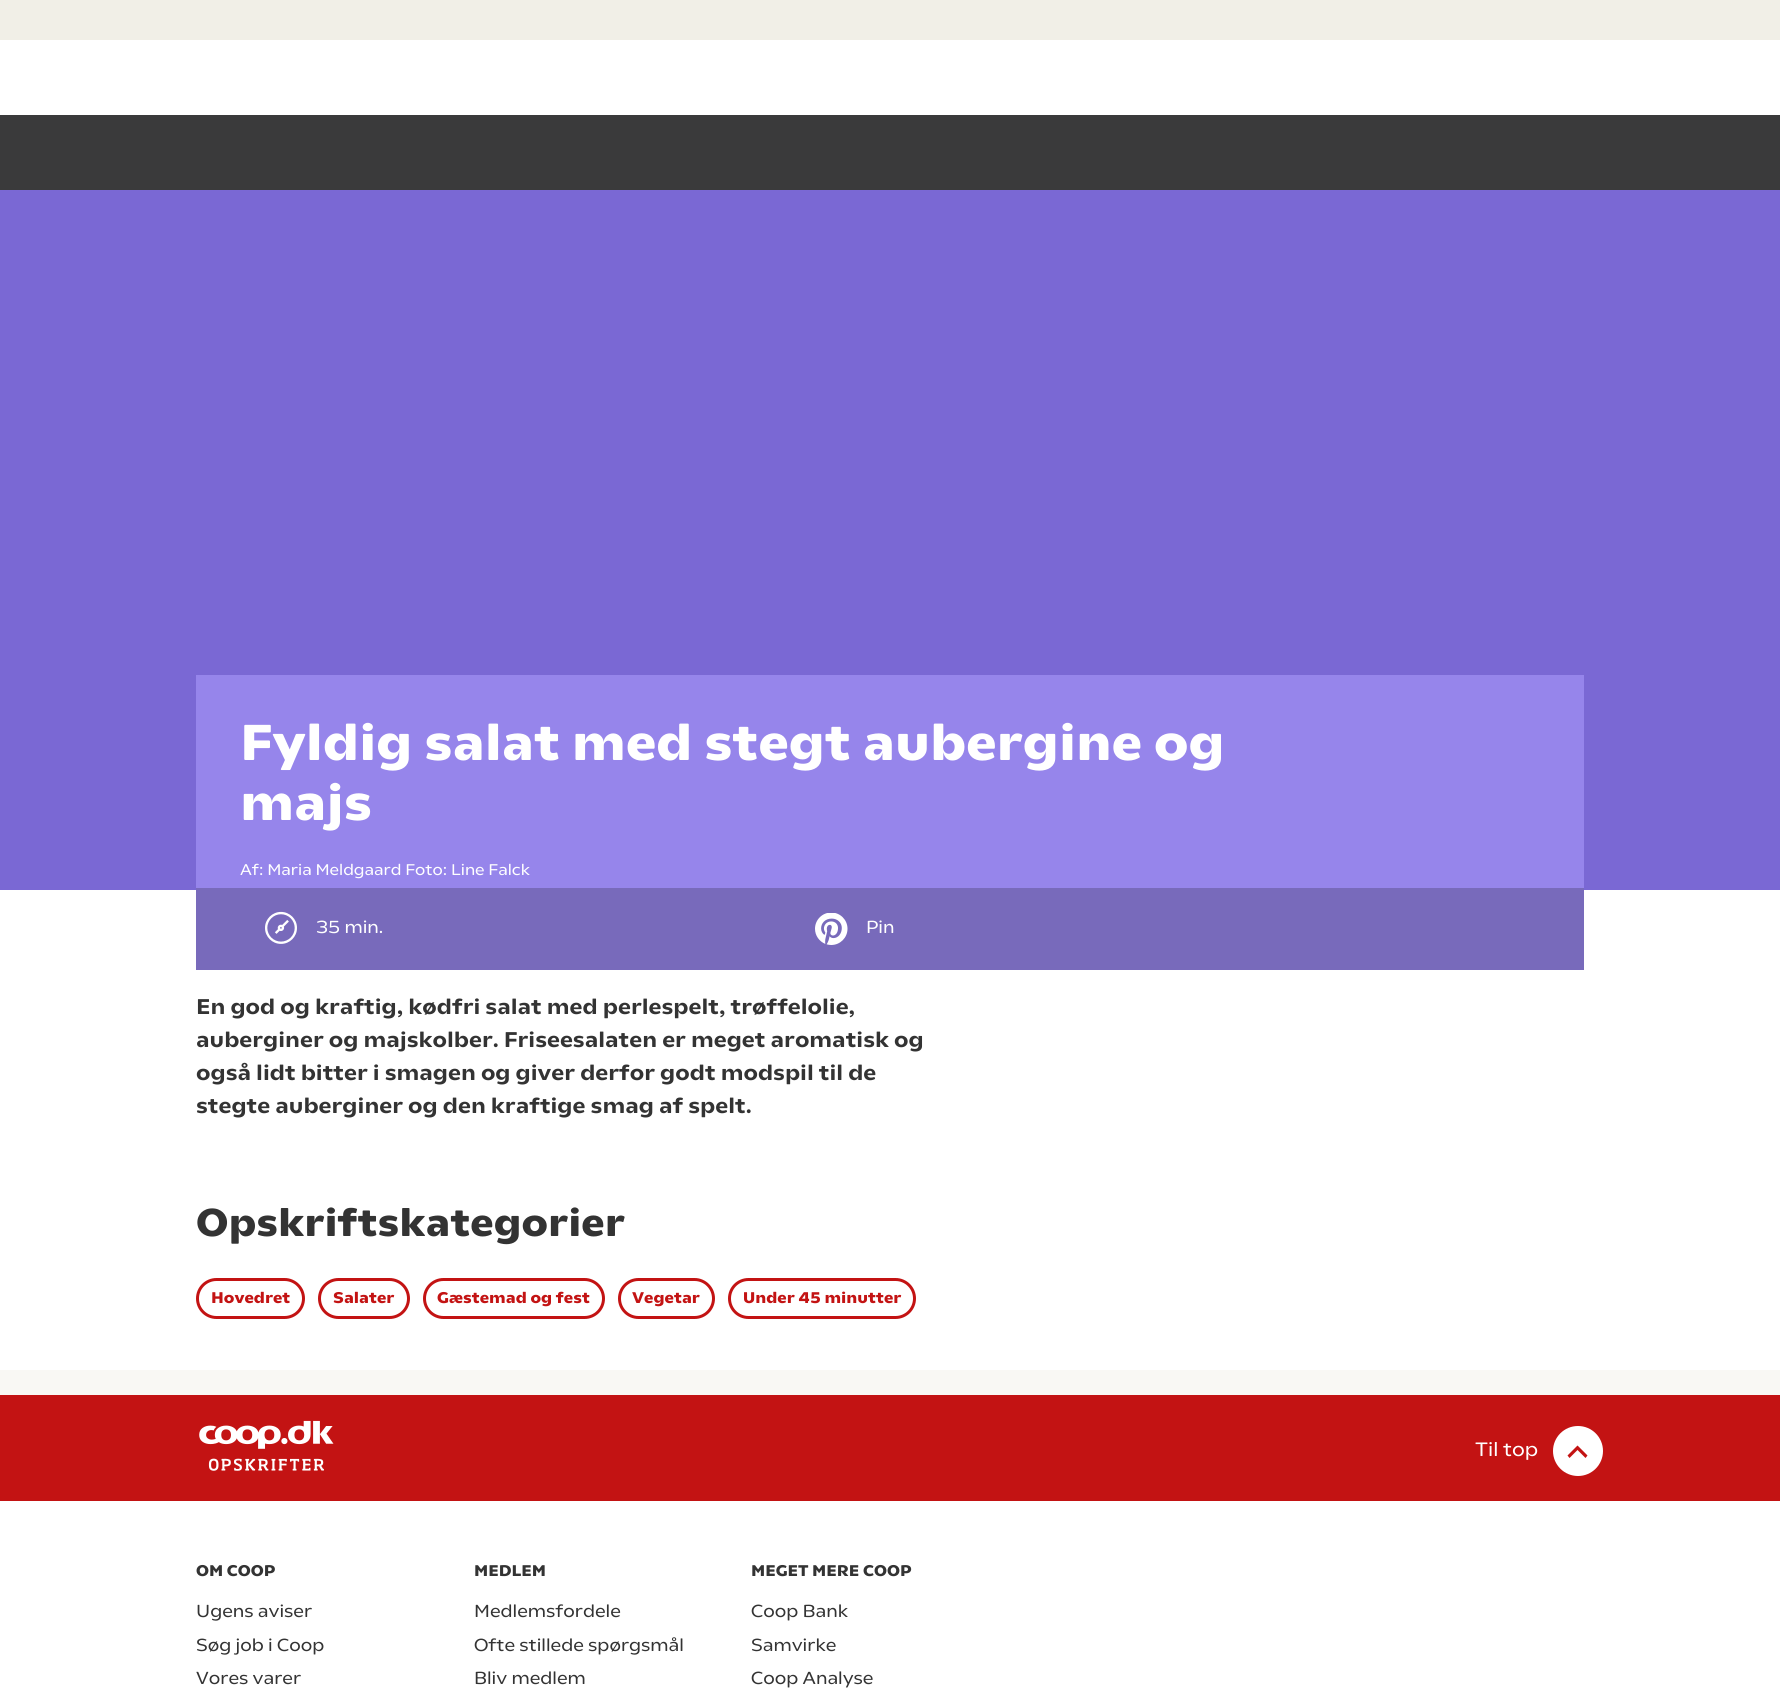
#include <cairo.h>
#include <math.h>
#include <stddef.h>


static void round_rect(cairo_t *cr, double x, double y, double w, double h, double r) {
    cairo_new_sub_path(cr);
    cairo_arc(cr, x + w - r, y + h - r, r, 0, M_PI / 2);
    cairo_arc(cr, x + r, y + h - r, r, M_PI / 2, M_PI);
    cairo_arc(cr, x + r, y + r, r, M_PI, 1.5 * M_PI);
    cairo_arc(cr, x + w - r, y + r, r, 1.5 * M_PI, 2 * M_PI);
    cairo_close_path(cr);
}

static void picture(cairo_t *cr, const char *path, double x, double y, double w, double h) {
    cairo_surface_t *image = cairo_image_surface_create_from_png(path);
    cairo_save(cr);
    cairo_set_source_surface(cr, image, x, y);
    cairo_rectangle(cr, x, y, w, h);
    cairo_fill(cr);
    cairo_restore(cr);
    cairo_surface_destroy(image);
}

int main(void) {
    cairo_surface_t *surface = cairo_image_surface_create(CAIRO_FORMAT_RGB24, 1780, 1698);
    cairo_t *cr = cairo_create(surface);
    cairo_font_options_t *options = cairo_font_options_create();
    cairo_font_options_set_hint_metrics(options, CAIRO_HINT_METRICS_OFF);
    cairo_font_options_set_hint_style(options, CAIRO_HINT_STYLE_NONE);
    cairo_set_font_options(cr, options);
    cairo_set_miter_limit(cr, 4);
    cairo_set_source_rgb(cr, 0.973, 0.969, 0.957);
    cairo_paint(cr);
    cairo_set_source_rgb(cr, 0.945, 0.937, 0.906);
    cairo_rectangle(cr, 0, 0, 1780, 40);
    cairo_fill(cr);
    cairo_set_source_rgb(cr, 1, 1, 1);
    cairo_rectangle(cr, 0, 40, 1780, 75);
    cairo_fill(cr);
    cairo_set_source_rgb(cr, 0.227, 0.227, 0.231);
    cairo_rectangle(cr, 0, 115, 1780, 75);
    cairo_fill(cr);
    cairo_set_source_rgb(cr, 0.478, 0.408, 0.831);
    cairo_rectangle(cr, 0, 190, 1780, 700);
    cairo_fill(cr);
    cairo_set_source_rgb(cr, 0.588, 0.522, 0.918);
    cairo_rectangle(cr, 196, 675, 1388, 213);
    cairo_fill(cr);
    cairo_select_font_face(cr, "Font", CAIRO_FONT_SLANT_NORMAL, CAIRO_FONT_WEIGHT_BOLD);
    cairo_set_font_size(cr, 52);
    cairo_set_source_rgb(cr, 1, 1, 1);
    cairo_move_to(cr, 240, 760);
    cairo_show_text(cr, "Fyldig salat med stegt aubergine og");
    cairo_move_to(cr, 240, 820);
    cairo_show_text(cr, "majs");
    cairo_select_font_face(cr, "Font", CAIRO_FONT_SLANT_NORMAL, CAIRO_FONT_WEIGHT_NORMAL);
    cairo_set_font_size(cr, 16);
    cairo_move_to(cr, 240, 875);
    cairo_show_text(cr, "Af: Maria Meldgaard Foto: Line Falck");
    cairo_rectangle(cr, 0, 890, 1780, 480);
    cairo_fill(cr);
    cairo_set_source_rgb(cr, 0.471, 0.416, 0.733);
    cairo_rectangle(cr, 196, 888, 1388, 82);
    cairo_fill(cr);
    picture(cr, "img1.png", 265, 911, 32, 33);
    cairo_set_font_size(cr, 18);
    cairo_set_source_rgb(cr, 1, 1, 1);
    cairo_move_to(cr, 316, 933);
    cairo_show_text(cr, "35 min.");
    picture(cr, "img2.png", 815, 913, 33, 32);
    cairo_move_to(cr, 866, 933);
    cairo_show_text(cr, "Pin");
    cairo_select_font_face(cr, "Font SemiBold", CAIRO_FONT_SLANT_NORMAL, CAIRO_FONT_WEIGHT_NORMAL);
    cairo_set_font_size(cr, 22);
    cairo_set_source_rgb(cr, 0.2, 0.2, 0.2);
    cairo_move_to(cr, 196, 1014);
    cairo_show_text(cr, "En god og kraftig, kødfri salat med perlespelt, trøffelolie,");
    cairo_move_to(cr, 196, 1047);
    cairo_show_text(cr, "auberginer og majskolber. Friseesalaten er meget aromatisk og");
    cairo_move_to(cr, 196, 1080);
    cairo_show_text(cr, "også lidt bitter i smagen og giver derfor godt modspil til de");
    cairo_move_to(cr, 196, 1113);
    cairo_show_text(cr, "stegte auberginer og den kraftige smag af spelt.");
    cairo_select_font_face(cr, "Font", CAIRO_FONT_SLANT_NORMAL, CAIRO_FONT_WEIGHT_BOLD);
    cairo_set_font_size(cr, 40);
    cairo_move_to(cr, 196, 1236);
    cairo_show_text(cr, "Opskriftskategorier");
    round_rect(cr, 197.5, 1279.5, 106, 38, 19);
    cairo_set_source_rgb(cr, 0.765, 0.078, 0.078);
    cairo_set_line_width(cr, 3);
    cairo_stroke(cr);
    cairo_set_font_size(cr, 16);
    cairo_move_to(cr, 211, 1303);
    cairo_show_text(cr, "Hovedret");
    round_rect(cr, 319.5, 1279.5, 89, 38, 19);
    cairo_stroke(cr);
    cairo_move_to(cr, 333, 1303);
    cairo_show_text(cr, "Salater");
    round_rect(cr, 424.5, 1279.5, 179, 38, 19);
    cairo_stroke(cr);
    cairo_move_to(cr, 437, 1303);
    cairo_show_text(cr, "Gæstemad og fest");
    round_rect(cr, 619.5, 1279.5, 94, 38, 19);
    cairo_stroke(cr);
    cairo_move_to(cr, 632, 1303);
    cairo_show_text(cr, "Vegetar");
    round_rect(cr, 729.5, 1279.5, 185, 38, 19);
    cairo_stroke(cr);
    cairo_move_to(cr, 743, 1303);
    cairo_show_text(cr, "Under 45 minutter");
    cairo_rectangle(cr, 0, 1395, 1780, 106);
    cairo_fill(cr);
    picture(cr, "img3.png", 199, 1420, 135, 51);
    cairo_select_font_face(cr, "Font", CAIRO_FONT_SLANT_NORMAL, CAIRO_FONT_WEIGHT_NORMAL);
    cairo_set_font_size(cr, 20);
    cairo_set_source_rgb(cr, 1, 1, 1);
    cairo_move_to(cr, 1475, 1456);
    cairo_show_text(cr, "Til top");
    cairo_new_path(cr);
    cairo_arc(cr, 1578, 1451, 25, 0, 2 * M_PI);
    cairo_fill(cr);
    cairo_set_source_rgb(cr, 0.765, 0.078, 0.078);
    cairo_new_path(cr);
    cairo_move_to(cr, 1577.5, 1445.5);
    cairo_line_to(cr, 1587.5, 1455.5);
    cairo_line_to(cr, 1585.5, 1458);
    cairo_line_to(cr, 1577.5, 1450);
    cairo_line_to(cr, 1569.5, 1458);
    cairo_line_to(cr, 1567.5, 1455.5);
    cairo_close_path(cr);
    cairo_fill(cr);
    cairo_set_source_rgb(cr, 1, 1, 1);
    cairo_rectangle(cr, 0, 1501, 1780, 197);
    cairo_fill(cr);
    cairo_select_font_face(cr, "Font", CAIRO_FONT_SLANT_NORMAL, CAIRO_FONT_WEIGHT_BOLD);
    cairo_set_font_size(cr, 16);
    cairo_set_source_rgb(cr, 0.2, 0.2, 0.2);
    cairo_move_to(cr, 196, 1576);
    cairo_show_text(cr, "OM COOP");
    cairo_select_font_face(cr, "Font", CAIRO_FONT_SLANT_NORMAL, CAIRO_FONT_WEIGHT_NORMAL);
    cairo_set_font_size(cr, 18);
    cairo_move_to(cr, 196, 1617);
    cairo_show_text(cr, "Ugens aviser");
    cairo_move_to(cr, 196, 1651);
    cairo_show_text(cr, "Søg job i Coop");
    cairo_move_to(cr, 196, 1684);
    cairo_show_text(cr, "Vores varer");
    cairo_select_font_face(cr, "Font", CAIRO_FONT_SLANT_NORMAL, CAIRO_FONT_WEIGHT_BOLD);
    cairo_set_font_size(cr, 16);
    cairo_move_to(cr, 474, 1576);
    cairo_show_text(cr, "MEDLEM");
    cairo_select_font_face(cr, "Font", CAIRO_FONT_SLANT_NORMAL, CAIRO_FONT_WEIGHT_NORMAL);
    cairo_set_font_size(cr, 18);
    cairo_move_to(cr, 474, 1617);
    cairo_show_text(cr, "Medlemsfordele");
    cairo_move_to(cr, 474, 1651);
    cairo_show_text(cr, "Ofte stillede spørgsmål");
    cairo_move_to(cr, 474, 1684);
    cairo_show_text(cr, "Bliv medlem");
    cairo_select_font_face(cr, "Font", CAIRO_FONT_SLANT_NORMAL, CAIRO_FONT_WEIGHT_BOLD);
    cairo_set_font_size(cr, 16);
    cairo_move_to(cr, 751, 1576);
    cairo_show_text(cr, "MEGET MERE COOP");
    cairo_select_font_face(cr, "Font", CAIRO_FONT_SLANT_NORMAL, CAIRO_FONT_WEIGHT_NORMAL);
    cairo_set_font_size(cr, 18);
    cairo_move_to(cr, 751, 1617);
    cairo_show_text(cr, "Coop Bank");
    cairo_move_to(cr, 751, 1651);
    cairo_show_text(cr, "Samvirke");
    cairo_move_to(cr, 751, 1684);
    cairo_show_text(cr, "Coop Analyse");
    cairo_surface_write_to_png(surface, "page.png");
    cairo_font_options_destroy(options);
    cairo_destroy(cr);
    cairo_surface_destroy(surface);
    return 0;
}
